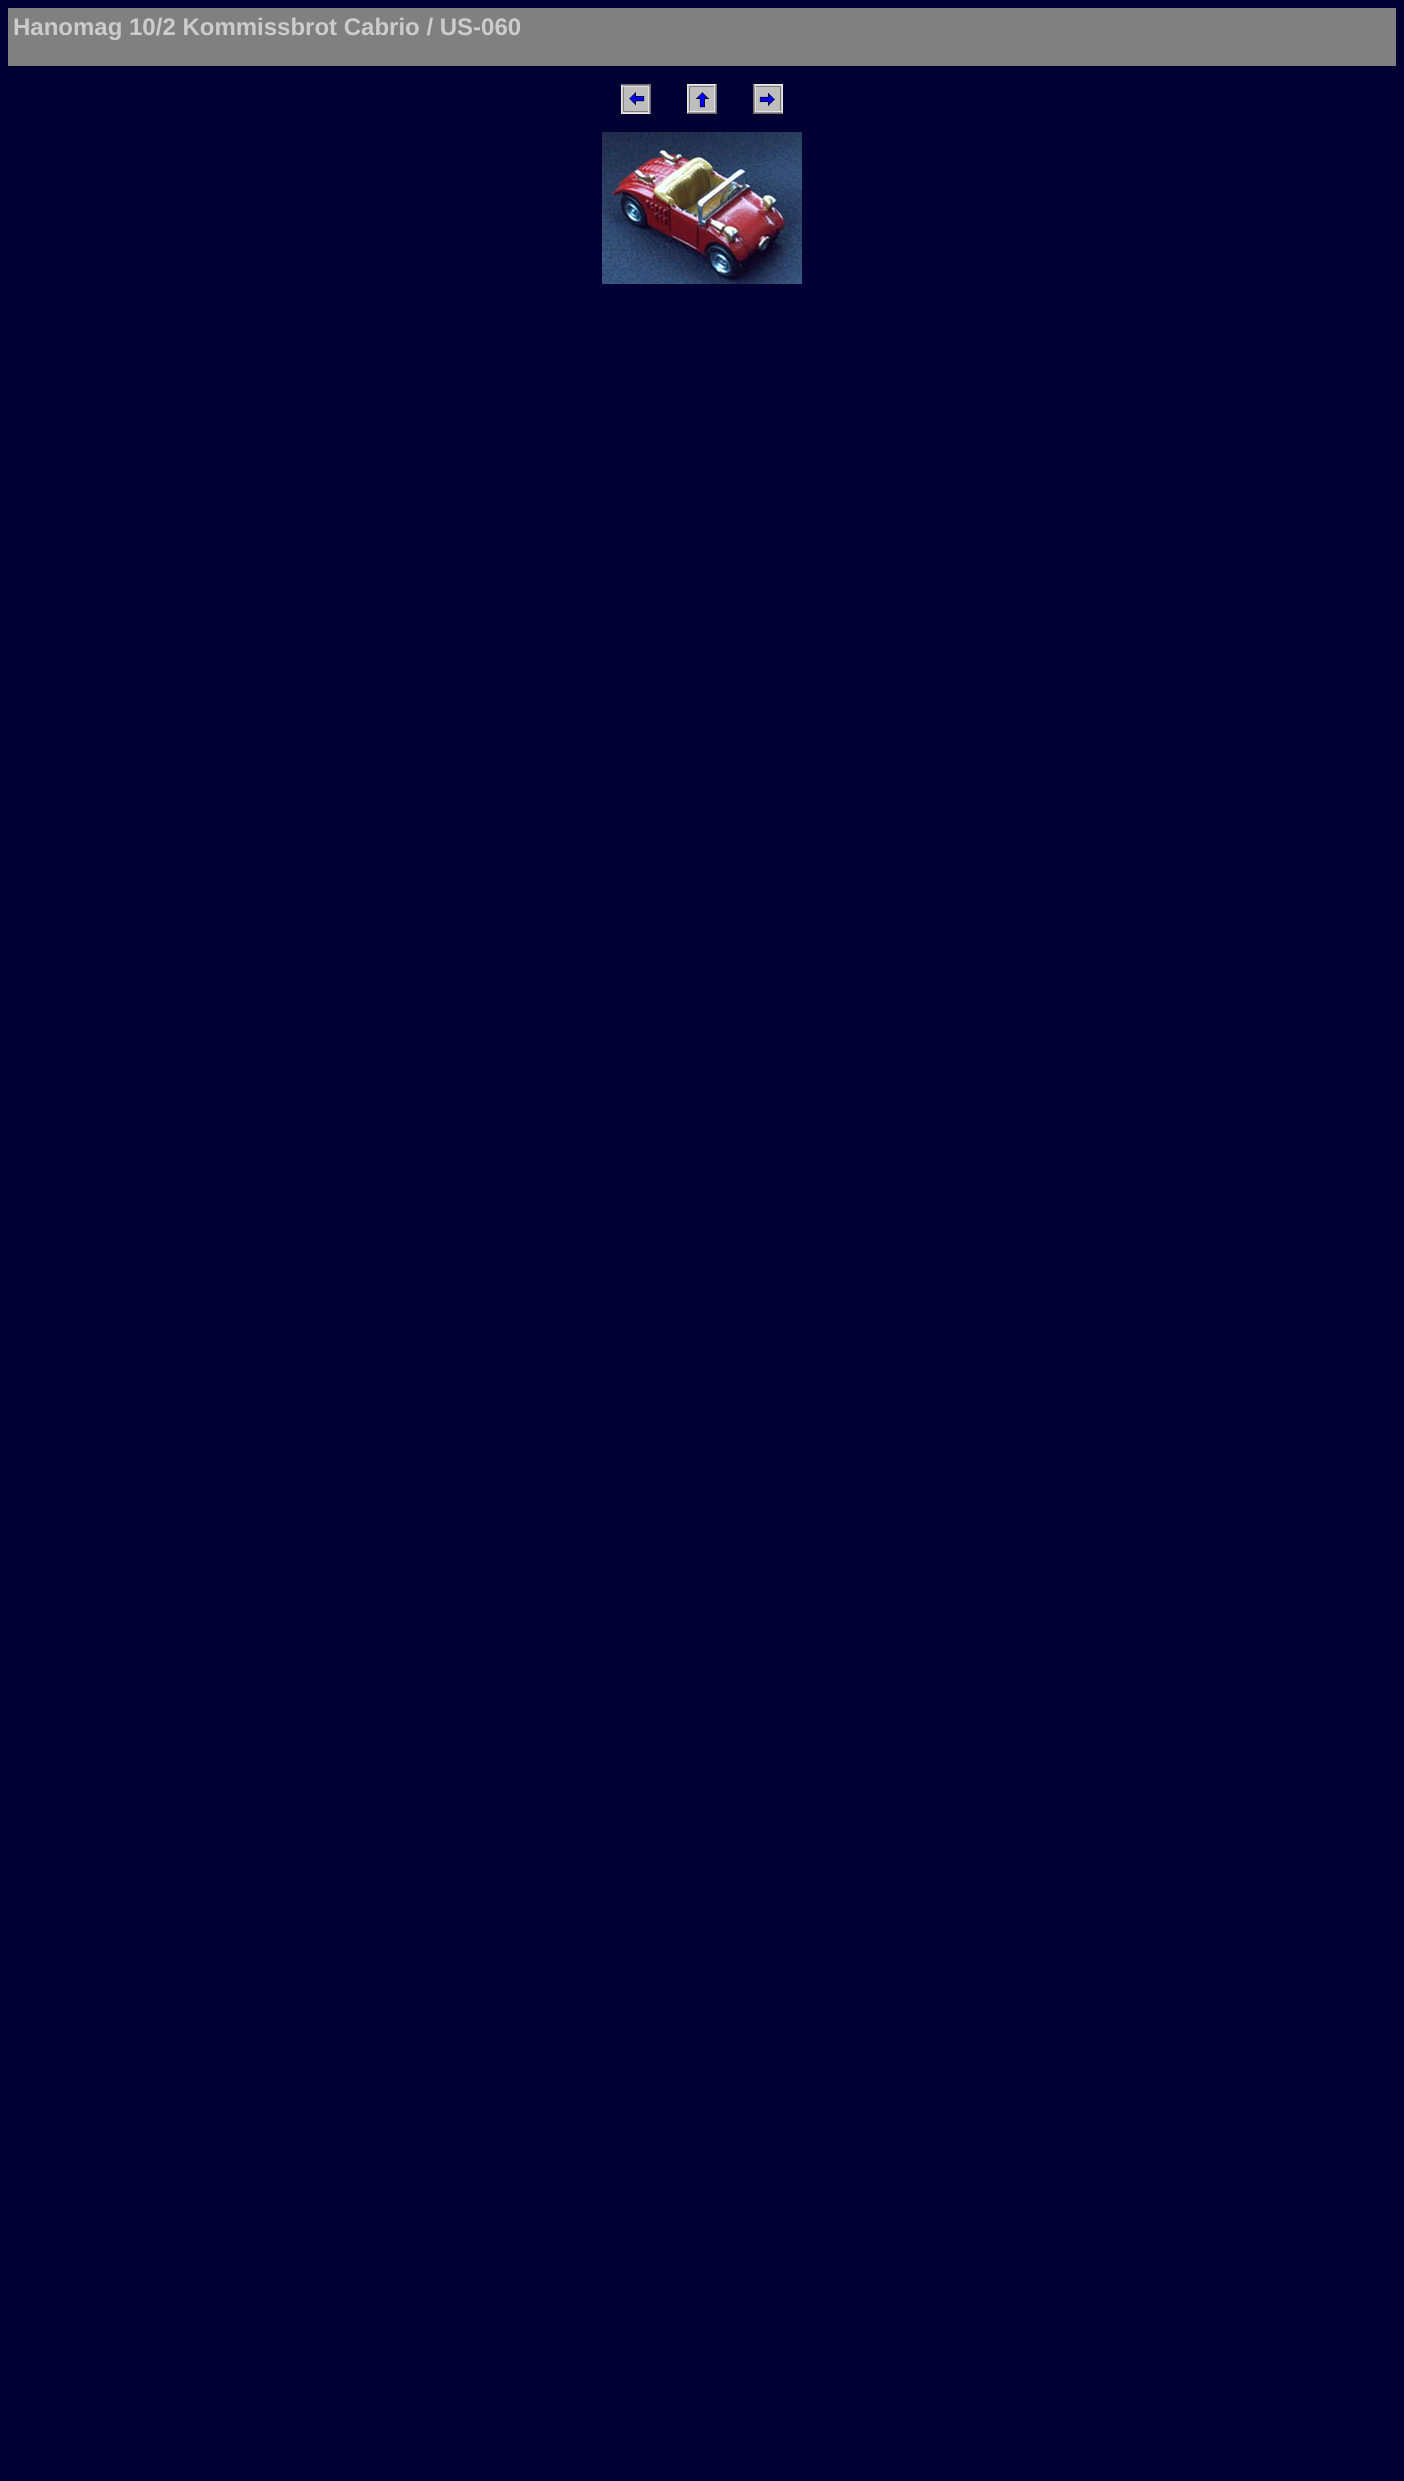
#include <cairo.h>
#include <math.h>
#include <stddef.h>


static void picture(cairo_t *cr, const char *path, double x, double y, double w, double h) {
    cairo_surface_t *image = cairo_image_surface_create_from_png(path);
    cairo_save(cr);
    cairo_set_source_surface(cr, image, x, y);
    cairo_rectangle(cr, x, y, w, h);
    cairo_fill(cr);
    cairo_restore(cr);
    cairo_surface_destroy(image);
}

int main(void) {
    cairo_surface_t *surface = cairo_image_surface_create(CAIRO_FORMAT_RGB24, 1404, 2481);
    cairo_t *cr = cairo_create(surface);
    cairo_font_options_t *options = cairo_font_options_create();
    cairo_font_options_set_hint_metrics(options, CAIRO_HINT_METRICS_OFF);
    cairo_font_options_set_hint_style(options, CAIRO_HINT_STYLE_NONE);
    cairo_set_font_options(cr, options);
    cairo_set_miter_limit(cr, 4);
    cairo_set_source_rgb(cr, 0, 0, 0.2);
    cairo_paint(cr);
    cairo_set_source_rgb(cr, 0.502, 0.502, 0.502);
    cairo_rectangle(cr, 8, 8, 1388, 58);
    cairo_fill(cr);
    cairo_select_font_face(cr, "Liberation Sans", CAIRO_FONT_SLANT_NORMAL, CAIRO_FONT_WEIGHT_BOLD);
    cairo_set_font_size(cr, 24);
    cairo_set_source_rgb(cr, 0.8, 0.8, 0.8);
    cairo_move_to(cr, 13, 35);
    cairo_show_text(cr, "Hanomag 10/2 Kommissbrot Cabrio / US-060");
    picture(cr, "img1.png", 621, 84, 30, 30);
    picture(cr, "img2.png", 687, 84, 30, 30);
    picture(cr, "img3.png", 753, 84, 30, 30);
    picture(cr, "img4.png", 602, 132, 200, 152);
    cairo_surface_write_to_png(surface, "page.png");
    cairo_font_options_destroy(options);
    cairo_destroy(cr);
    cairo_surface_destroy(surface);
    return 0;
}
